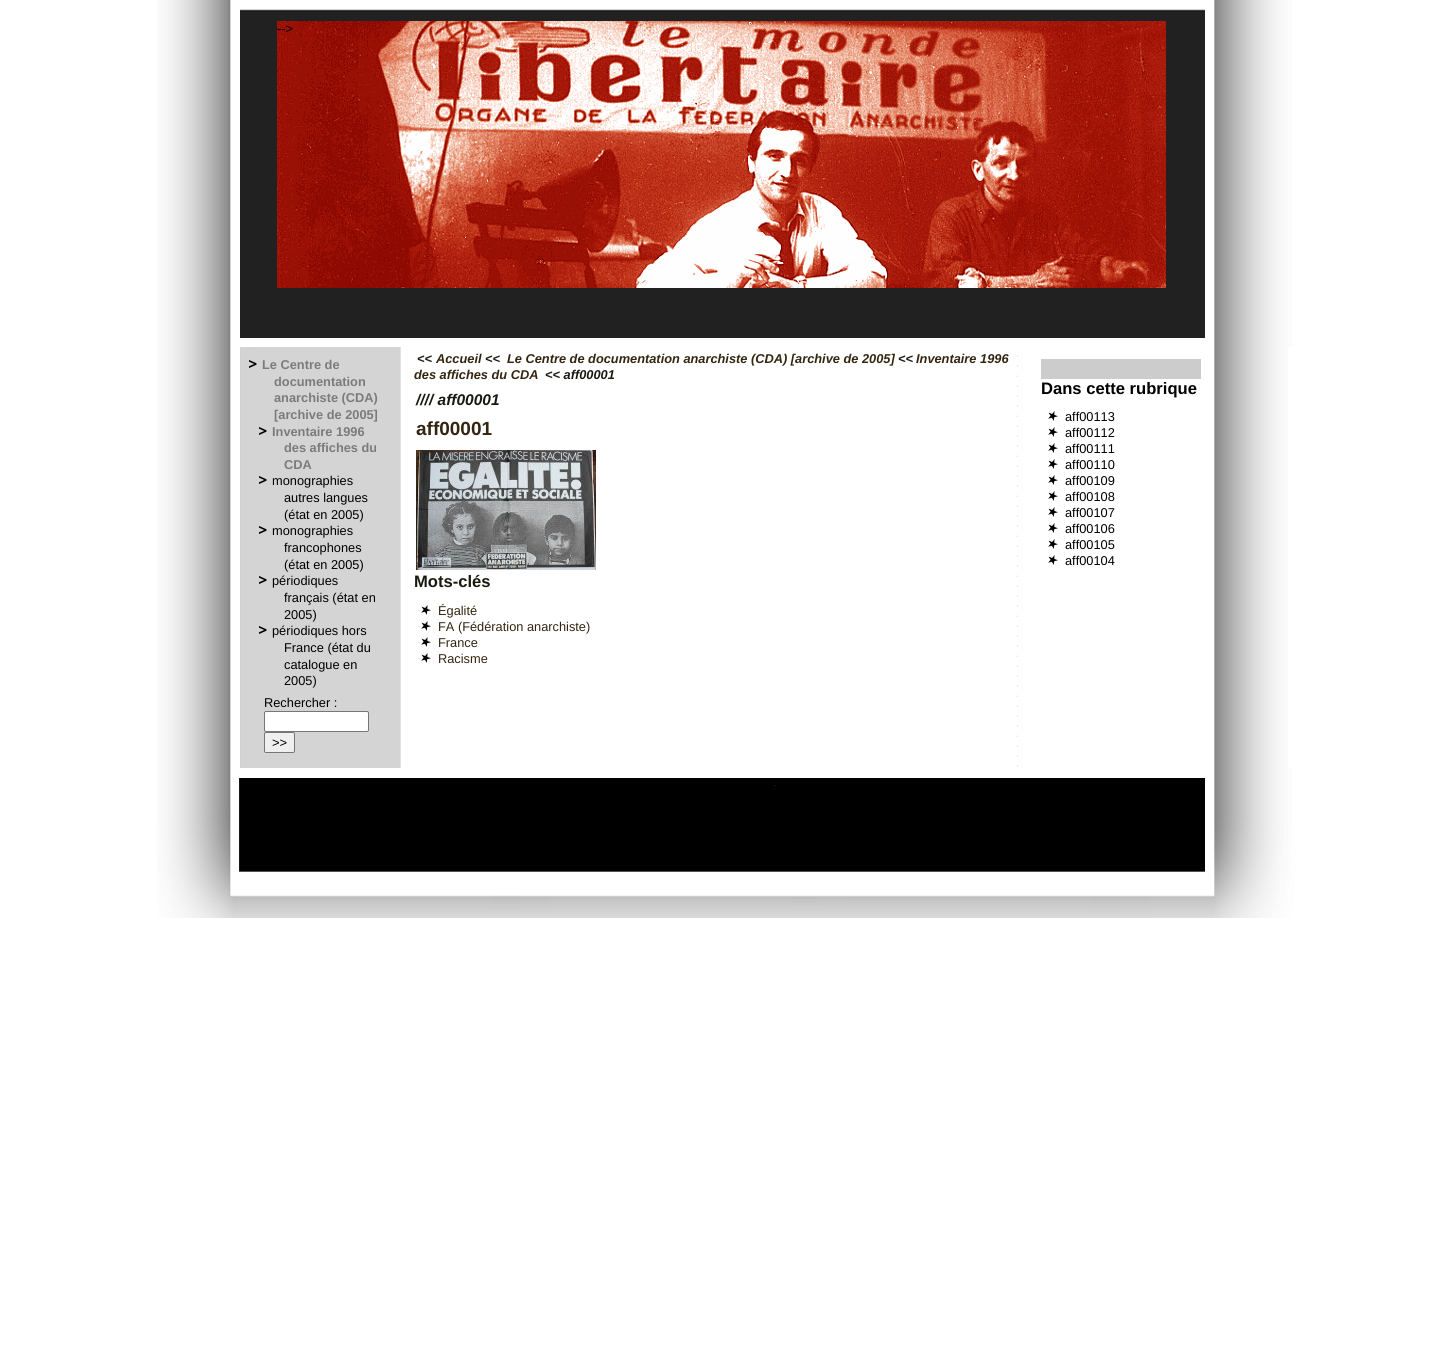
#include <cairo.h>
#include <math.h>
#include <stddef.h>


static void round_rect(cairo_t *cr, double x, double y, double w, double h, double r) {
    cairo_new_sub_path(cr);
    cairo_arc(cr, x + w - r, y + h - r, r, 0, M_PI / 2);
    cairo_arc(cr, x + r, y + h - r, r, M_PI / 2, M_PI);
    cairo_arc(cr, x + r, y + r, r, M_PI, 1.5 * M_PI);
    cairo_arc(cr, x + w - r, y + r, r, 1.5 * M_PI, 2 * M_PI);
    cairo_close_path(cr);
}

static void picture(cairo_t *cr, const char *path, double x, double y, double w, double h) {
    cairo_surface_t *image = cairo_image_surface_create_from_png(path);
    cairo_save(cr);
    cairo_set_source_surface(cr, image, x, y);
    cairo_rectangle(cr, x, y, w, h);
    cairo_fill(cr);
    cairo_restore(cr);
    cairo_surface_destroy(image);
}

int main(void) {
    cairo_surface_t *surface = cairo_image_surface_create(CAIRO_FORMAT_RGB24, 1439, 1346);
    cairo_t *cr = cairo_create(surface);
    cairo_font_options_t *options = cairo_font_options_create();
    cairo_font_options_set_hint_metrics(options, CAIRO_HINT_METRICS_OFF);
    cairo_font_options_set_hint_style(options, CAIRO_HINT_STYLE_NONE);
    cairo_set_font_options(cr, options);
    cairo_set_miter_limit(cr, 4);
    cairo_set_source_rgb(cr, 1, 1, 1);
    cairo_paint(cr);
    picture(cr, "img1.png", 157, 0, 1048, 347);
    picture(cr, "img2.png", 1205, 0, 91, 347);
    picture(cr, "img3.png", 277, 21, 889, 267);
    cairo_select_font_face(cr, "Liberation Sans", CAIRO_FONT_SLANT_NORMAL, CAIRO_FONT_WEIGHT_NORMAL);
    cairo_set_font_size(cr, 12.8);
    cairo_set_source_rgb(cr, 0, 0, 0);
    cairo_move_to(cr, 277, 33);
    cairo_show_text(cr, "-->");
    picture(cr, "img4.png", 157, 347, 244, 421);
    picture(cr, "img5.png", 1017, 347, 271, 421);
    picture(cr, "img6.png", 249, 360, 8, 8);
    cairo_select_font_face(cr, "Liberation Sans", CAIRO_FONT_SLANT_NORMAL, CAIRO_FONT_WEIGHT_BOLD);
    cairo_set_source_rgb(cr, 0.482, 0.482, 0.482);
    cairo_move_to(cr, 262, 369);
    cairo_show_text(cr, "Le Centre de");
    cairo_move_to(cr, 274, 386);
    cairo_show_text(cr, "documentation");
    cairo_move_to(cr, 274, 402);
    cairo_show_text(cr, "anarchiste (CDA)");
    cairo_move_to(cr, 274, 419);
    cairo_show_text(cr, "[archive de 2005]");
    picture(cr, "img6.png", 259, 427, 8, 8);
    cairo_move_to(cr, 272, 436);
    cairo_show_text(cr, "Inventaire 1996");
    cairo_move_to(cr, 284, 452);
    cairo_show_text(cr, "des affiches du");
    cairo_move_to(cr, 284, 469);
    cairo_show_text(cr, "CDA");
    picture(cr, "img6.png", 259, 476, 8, 8);
    cairo_select_font_face(cr, "Liberation Sans", CAIRO_FONT_SLANT_NORMAL, CAIRO_FONT_WEIGHT_NORMAL);
    cairo_set_source_rgb(cr, 0, 0, 0);
    cairo_move_to(cr, 272, 485);
    cairo_show_text(cr, "monographies");
    cairo_move_to(cr, 284, 502);
    cairo_show_text(cr, "autres langues");
    cairo_move_to(cr, 284, 519);
    cairo_show_text(cr, "(état en 2005)");
    picture(cr, "img6.png", 259, 526, 8, 8);
    cairo_move_to(cr, 272, 535);
    cairo_show_text(cr, "monographies");
    cairo_move_to(cr, 284, 552);
    cairo_show_text(cr, "francophones");
    cairo_move_to(cr, 284, 569);
    cairo_show_text(cr, "(état en 2005)");
    picture(cr, "img6.png", 259, 576, 8, 8);
    cairo_move_to(cr, 272, 585);
    cairo_show_text(cr, "périodiques");
    cairo_move_to(cr, 284, 602);
    cairo_show_text(cr, "français (état en");
    cairo_move_to(cr, 284, 619);
    cairo_show_text(cr, "2005)");
    picture(cr, "img6.png", 259, 626, 8, 8);
    cairo_move_to(cr, 272, 635);
    cairo_show_text(cr, "périodiques hors");
    cairo_move_to(cr, 284, 652);
    cairo_show_text(cr, "France (état du");
    cairo_move_to(cr, 284, 669);
    cairo_show_text(cr, "catalogue en");
    cairo_move_to(cr, 284, 685);
    cairo_show_text(cr, "2005)");
    cairo_move_to(cr, 264, 707);
    cairo_show_text(cr, "Rechercher :");
    cairo_set_source_rgb(cr, 1, 1, 1);
    round_rect(cr, 264.5, 711.5, 104, 20, 1.5);
    cairo_fill_preserve(cr);
    cairo_set_source_rgb(cr, 0.463, 0.463, 0.463);
    cairo_set_line_width(cr, 1);
    cairo_stroke(cr);
    cairo_set_source_rgb(cr, 0.937, 0.937, 0.937);
    round_rect(cr, 264.5, 732.5, 30, 20, 1.5);
    cairo_fill_preserve(cr);
    cairo_set_source_rgb(cr, 0.463, 0.463, 0.463);
    cairo_stroke(cr);
    cairo_set_font_size(cr, 13);
    cairo_set_source_rgb(cr, 0, 0, 0);
    cairo_move_to(cr, 272, 747);
    cairo_show_text(cr, ">>");
    cairo_select_font_face(cr, "Liberation Sans", CAIRO_FONT_SLANT_ITALIC, CAIRO_FONT_WEIGHT_BOLD);
    cairo_set_font_size(cr, 12.8);
    cairo_set_source_rgb(cr, 0.094, 0.102, 0.071);
    cairo_move_to(cr, 417, 363);
    cairo_show_text(cr, "<<");
    cairo_set_source_rgb(cr, 0.2, 0.145, 0.063);
    cairo_move_to(cr, 436, 363);
    cairo_show_text(cr, "Accueil");
    cairo_set_source_rgb(cr, 0.094, 0.102, 0.071);
    cairo_move_to(cr, 485, 363);
    cairo_show_text(cr, "<<");
    cairo_set_source_rgb(cr, 0.2, 0.145, 0.063);
    cairo_move_to(cr, 507, 363);
    cairo_show_text(cr, "Le Centre de documentation anarchiste (CDA) [archive de 2005]");
    cairo_set_source_rgb(cr, 0.094, 0.102, 0.071);
    cairo_move_to(cr, 898, 363);
    cairo_show_text(cr, "<<");
    cairo_set_source_rgb(cr, 0.2, 0.145, 0.063);
    cairo_move_to(cr, 916, 363);
    cairo_show_text(cr, "Inventaire 1996");
    cairo_move_to(cr, 414, 379);
    cairo_show_text(cr, "des affiches du CDA");
    cairo_set_source_rgb(cr, 0.094, 0.102, 0.071);
    cairo_move_to(cr, 545, 379);
    cairo_show_text(cr, "<< aff00001");
    cairo_set_font_size(cr, 15.5);
    cairo_move_to(cr, 416, 405);
    cairo_show_text(cr, "//// aff00001");
    cairo_select_font_face(cr, "Liberation Sans", CAIRO_FONT_SLANT_NORMAL, CAIRO_FONT_WEIGHT_BOLD);
    cairo_set_font_size(cr, 19);
    cairo_set_source_rgb(cr, 0.2, 0.145, 0.063);
    cairo_move_to(cr, 416, 435);
    cairo_show_text(cr, "aff00001");
    picture(cr, "img7.png", 416, 450, 180, 120);
    cairo_set_font_size(cr, 16.6);
    cairo_set_source_rgb(cr, 0.094, 0.102, 0.071);
    cairo_move_to(cr, 414, 587);
    cairo_show_text(cr, "Mots-clés");
    picture(cr, "img8.png", 421, 605, 10, 10);
    cairo_select_font_face(cr, "Liberation Sans", CAIRO_FONT_SLANT_NORMAL, CAIRO_FONT_WEIGHT_NORMAL);
    cairo_set_font_size(cr, 12.8);
    cairo_set_source_rgb(cr, 0.2, 0.145, 0.063);
    cairo_move_to(cr, 438, 615);
    cairo_show_text(cr, "Égalité");
    picture(cr, "img8.png", 421, 621, 10, 10);
    cairo_move_to(cr, 438, 631);
    cairo_show_text(cr, "FA (Fédération anarchiste)");
    picture(cr, "img8.png", 421, 637, 10, 10);
    cairo_move_to(cr, 438, 647);
    cairo_show_text(cr, "France");
    picture(cr, "img8.png", 421, 653, 10, 10);
    cairo_move_to(cr, 438, 663);
    cairo_show_text(cr, "Racisme");
    cairo_set_source_rgb(cr, 0.8, 0.8, 0.8);
    cairo_rectangle(cr, 1041, 359, 160, 20);
    cairo_fill(cr);
    cairo_select_font_face(cr, "Liberation Sans", CAIRO_FONT_SLANT_NORMAL, CAIRO_FONT_WEIGHT_BOLD);
    cairo_set_font_size(cr, 16.6);
    cairo_set_source_rgb(cr, 0, 0, 0);
    cairo_move_to(cr, 1041, 394);
    cairo_show_text(cr, "Dans cette rubrique");
    picture(cr, "img8.png", 1048, 411, 10, 10);
    cairo_select_font_face(cr, "Liberation Sans", CAIRO_FONT_SLANT_NORMAL, CAIRO_FONT_WEIGHT_NORMAL);
    cairo_set_font_size(cr, 12.8);
    cairo_move_to(cr, 1065, 421);
    cairo_show_text(cr, "aff00113");
    picture(cr, "img8.png", 1048, 427, 10, 10);
    cairo_move_to(cr, 1065, 437);
    cairo_show_text(cr, "aff00112");
    picture(cr, "img8.png", 1048, 443, 10, 10);
    cairo_move_to(cr, 1065, 453);
    cairo_show_text(cr, "aff00111");
    picture(cr, "img8.png", 1048, 459, 10, 10);
    cairo_move_to(cr, 1065, 469);
    cairo_show_text(cr, "aff00110");
    picture(cr, "img8.png", 1048, 475, 10, 10);
    cairo_move_to(cr, 1065, 485);
    cairo_show_text(cr, "aff00109");
    picture(cr, "img8.png", 1048, 491, 10, 10);
    cairo_move_to(cr, 1065, 501);
    cairo_show_text(cr, "aff00108");
    picture(cr, "img8.png", 1048, 507, 10, 10);
    cairo_move_to(cr, 1065, 517);
    cairo_show_text(cr, "aff00107");
    picture(cr, "img8.png", 1048, 523, 10, 10);
    cairo_move_to(cr, 1065, 533);
    cairo_show_text(cr, "aff00106");
    picture(cr, "img8.png", 1048, 539, 10, 10);
    cairo_move_to(cr, 1065, 549);
    cairo_show_text(cr, "aff00105");
    picture(cr, "img8.png", 1048, 555, 10, 10);
    cairo_move_to(cr, 1065, 565);
    cairo_show_text(cr, "aff00104");
    picture(cr, "img9.png", 157, 768, 1048, 150);
    picture(cr, "img10.png", 1205, 768, 91, 150);
    cairo_surface_write_to_png(surface, "page.png");
    cairo_font_options_destroy(options);
    cairo_destroy(cr);
    cairo_surface_destroy(surface);
    return 0;
}
